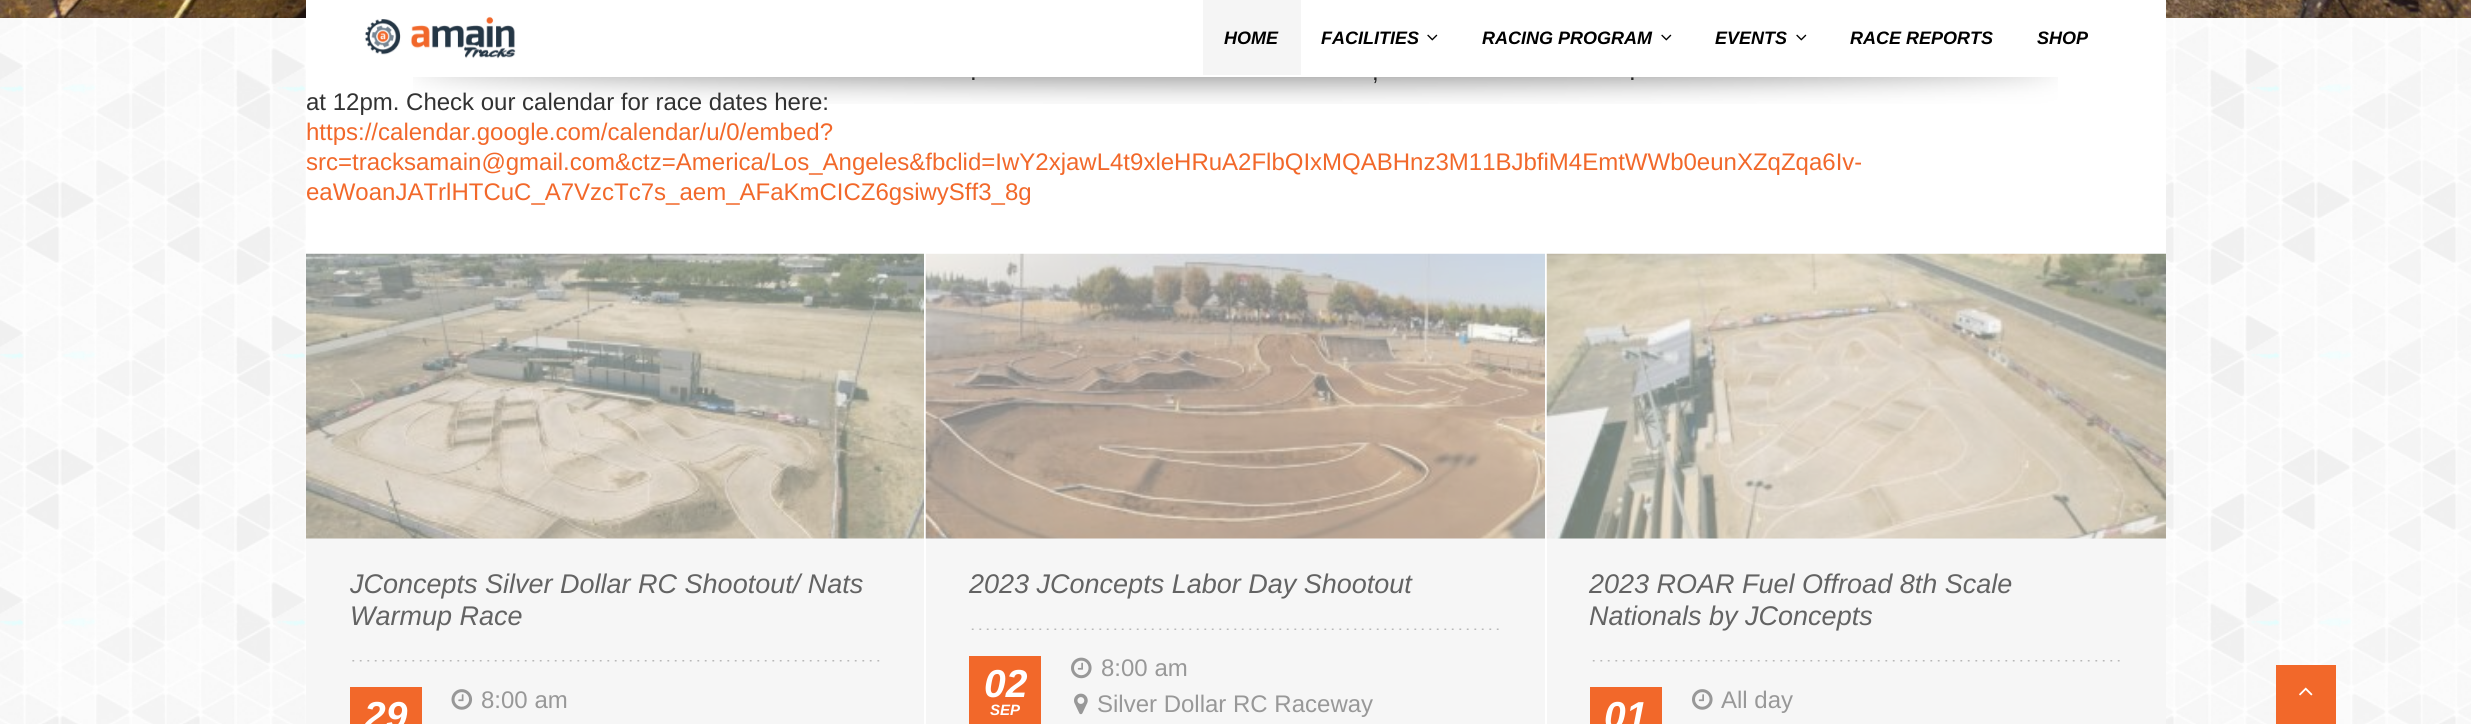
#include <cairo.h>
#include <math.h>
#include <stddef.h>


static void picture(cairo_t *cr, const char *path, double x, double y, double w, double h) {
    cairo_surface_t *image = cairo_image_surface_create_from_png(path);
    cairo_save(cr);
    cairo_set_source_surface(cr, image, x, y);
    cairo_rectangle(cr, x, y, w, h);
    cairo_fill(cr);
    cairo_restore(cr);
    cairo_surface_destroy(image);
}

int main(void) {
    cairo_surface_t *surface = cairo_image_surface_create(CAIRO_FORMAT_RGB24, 2471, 724);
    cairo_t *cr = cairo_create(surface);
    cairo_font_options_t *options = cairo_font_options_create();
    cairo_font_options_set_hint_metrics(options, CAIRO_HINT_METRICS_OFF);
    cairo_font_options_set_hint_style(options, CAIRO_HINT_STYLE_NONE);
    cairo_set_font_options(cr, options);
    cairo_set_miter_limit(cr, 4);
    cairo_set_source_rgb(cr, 1, 1, 1);
    cairo_paint(cr);
    picture(cr, "img1.png", 0, 18, 2471, 706);
    picture(cr, "img2.png", 0, 0, 2471, 18);
    cairo_set_source_rgb(cr, 1, 1, 1);
    cairo_rectangle(cr, 306, 0, 1860, 724);
    cairo_fill(cr);
    picture(cr, "img3.png", 363, 15, 154, 44);
    cairo_set_source_rgba(cr, 0, 0, 0, 0.04);
    cairo_rectangle(cr, 1203, 0, 98, 75);
    cairo_fill(cr);
    cairo_select_font_face(cr, "Liberation Sans", CAIRO_FONT_SLANT_ITALIC, CAIRO_FONT_WEIGHT_BOLD);
    cairo_set_font_size(cr, 18);
    cairo_set_source_rgb(cr, 0, 0, 0);
    cairo_move_to(cr, 1224, 44);
    cairo_show_text(cr, "HOME");
    cairo_move_to(cr, 1321, 44);
    cairo_show_text(cr, "FACILITIES");
    picture(cr, "img4.png", 1427, 34, 11, 7);
    cairo_move_to(cr, 1482, 44);
    cairo_show_text(cr, "RACING PROGRAM");
    picture(cr, "img5.png", 1661, 34, 11, 7);
    cairo_move_to(cr, 1715, 44);
    cairo_show_text(cr, "EVENTS");
    picture(cr, "img6.png", 1796, 34, 11, 7);
    cairo_move_to(cr, 1850, 44);
    cairo_show_text(cr, "RACE REPORTS");
    cairo_move_to(cr, 2037, 44);
    cairo_show_text(cr, "SHOP");
    cairo_select_font_face(cr, "Liberation Sans", CAIRO_FONT_SLANT_NORMAL, CAIRO_FONT_WEIGHT_NORMAL);
    cairo_set_font_size(cr, 24);
    cairo_set_source_rgb(cr, 0.196, 0.196, 0.196);
    cairo_move_to(cr, 970, 80);
    cairo_show_text(cr, ".");
    cairo_move_to(cr, 1372, 80);
    cairo_show_text(cr, ",");
    cairo_move_to(cr, 1629, 80);
    cairo_show_text(cr, ".");
    cairo_move_to(cr, 306, 110);
    cairo_show_text(cr, "at 12pm. Check our calendar for race dates here:");
    picture(cr, "img7.png", 413, 77, 1645, 27);
    cairo_set_source_rgb(cr, 0.949, 0.408, 0.165);
    cairo_move_to(cr, 306, 140);
    cairo_show_text(cr, "https://calendar.google.com/calendar/u/0/embed?");
    cairo_move_to(cr, 306, 170);
    cairo_show_text(cr, "src=tracksamain@gmail.com&ctz=America/Los_Angeles&fbclid=IwY2xjawL4t9xleHRuA2FlbQIxMQABHnz3M11BJbfiM4EmtWWb0eunXZqZqa6Iv-");
    cairo_move_to(cr, 306, 200);
    cairo_show_text(cr, "eaWoanJATrlHTCuC_A7VzcTc7s_aem_AFaKmCICZ6gsiwySff3_8g");
    cairo_set_source_rgb(cr, 0.961, 0.961, 0.961);
    cairo_rectangle(cr, 306, 254, 618, 470);
    cairo_fill(cr);
    picture(cr, "img8.png", 306, 253, 618, 286);
    cairo_select_font_face(cr, "Liberation Sans", CAIRO_FONT_SLANT_ITALIC, CAIRO_FONT_WEIGHT_NORMAL);
    cairo_set_font_size(cr, 27);
    cairo_set_source_rgb(cr, 0.388, 0.388, 0.388);
    cairo_move_to(cr, 350, 593);
    cairo_show_text(cr, "JConcepts Silver Dollar RC Shootout/ Nats");
    cairo_move_to(cr, 350, 625);
    cairo_show_text(cr, "Warmup Race");
    picture(cr, "img9.png", 352, 660, 528, 2);
    cairo_set_source_rgb(cr, 0.949, 0.408, 0.165);
    cairo_rectangle(cr, 350, 687, 72, 37);
    cairo_fill(cr);
    cairo_select_font_face(cr, "Liberation Sans", CAIRO_FONT_SLANT_ITALIC, CAIRO_FONT_WEIGHT_BOLD);
    cairo_set_font_size(cr, 39);
    cairo_set_source_rgb(cr, 1, 1, 1);
    cairo_move_to(cr, 364, 729);
    cairo_show_text(cr, "29");
    picture(cr, "img10.png", 451, 689, 22, 21);
    cairo_select_font_face(cr, "Liberation Sans", CAIRO_FONT_SLANT_NORMAL, CAIRO_FONT_WEIGHT_NORMAL);
    cairo_set_font_size(cr, 24);
    cairo_set_source_rgb(cr, 0.596, 0.596, 0.596);
    cairo_move_to(cr, 481, 708);
    cairo_show_text(cr, "8:00 am");
    cairo_set_source_rgb(cr, 0.961, 0.961, 0.961);
    cairo_rectangle(cr, 926, 254, 619, 470);
    cairo_fill(cr);
    picture(cr, "img11.png", 925, 253, 620, 286);
    cairo_select_font_face(cr, "Liberation Sans", CAIRO_FONT_SLANT_ITALIC, CAIRO_FONT_WEIGHT_NORMAL);
    cairo_set_font_size(cr, 27);
    cairo_set_source_rgb(cr, 0.388, 0.388, 0.388);
    cairo_move_to(cr, 969, 593);
    cairo_show_text(cr, "2023 JConcepts Labor Day Shootout");
    picture(cr, "img12.png", 971, 628, 528, 2);
    cairo_set_source_rgb(cr, 0.949, 0.408, 0.165);
    cairo_rectangle(cr, 969, 656, 72, 68);
    cairo_fill(cr);
    cairo_select_font_face(cr, "Liberation Sans", CAIRO_FONT_SLANT_ITALIC, CAIRO_FONT_WEIGHT_BOLD);
    cairo_set_font_size(cr, 39);
    cairo_set_source_rgb(cr, 1, 1, 1);
    cairo_move_to(cr, 984, 697);
    cairo_show_text(cr, "02");
    cairo_set_font_size(cr, 15);
    cairo_move_to(cr, 990, 715);
    cairo_show_text(cr, "SEP");
    picture(cr, "img13.png", 1071, 657, 21, 22);
    cairo_select_font_face(cr, "Liberation Sans", CAIRO_FONT_SLANT_NORMAL, CAIRO_FONT_WEIGHT_NORMAL);
    cairo_set_font_size(cr, 24);
    cairo_set_source_rgb(cr, 0.596, 0.596, 0.596);
    cairo_move_to(cr, 1101, 676);
    cairo_show_text(cr, "8:00 am");
    picture(cr, "img14.png", 1074, 693, 14, 22);
    cairo_move_to(cr, 1097, 712);
    cairo_show_text(cr, "Silver Dollar RC Raceway");
    cairo_set_source_rgb(cr, 0.961, 0.961, 0.961);
    cairo_rectangle(cr, 1547, 254, 619, 470);
    cairo_fill(cr);
    picture(cr, "img15.png", 1546, 253, 620, 286);
    cairo_select_font_face(cr, "Liberation Sans", CAIRO_FONT_SLANT_ITALIC, CAIRO_FONT_WEIGHT_NORMAL);
    cairo_set_font_size(cr, 27);
    cairo_set_source_rgb(cr, 0.388, 0.388, 0.388);
    cairo_move_to(cr, 1589, 593);
    cairo_show_text(cr, "2023 ROAR Fuel Offroad 8th Scale");
    cairo_move_to(cr, 1589, 625);
    cairo_show_text(cr, "Nationals by JConcepts");
    picture(cr, "img16.png", 1592, 660, 528, 2);
    cairo_set_source_rgb(cr, 0.949, 0.408, 0.165);
    cairo_rectangle(cr, 1590, 687, 72, 37);
    cairo_fill(cr);
    cairo_select_font_face(cr, "Liberation Sans", CAIRO_FONT_SLANT_ITALIC, CAIRO_FONT_WEIGHT_BOLD);
    cairo_set_font_size(cr, 39);
    cairo_set_source_rgb(cr, 1, 1, 1);
    cairo_move_to(cr, 1604, 729);
    cairo_show_text(cr, "01");
    picture(cr, "img17.png", 1692, 689, 21, 21);
    cairo_select_font_face(cr, "Liberation Sans", CAIRO_FONT_SLANT_NORMAL, CAIRO_FONT_WEIGHT_NORMAL);
    cairo_set_font_size(cr, 24);
    cairo_set_source_rgb(cr, 0.596, 0.596, 0.596);
    cairo_move_to(cr, 1721, 708);
    cairo_show_text(cr, "All day");
    cairo_set_source_rgb(cr, 0.949, 0.408, 0.165);
    cairo_rectangle(cr, 2276, 665, 60, 59);
    cairo_fill(cr);
    picture(cr, "img18.png", 2299, 687, 14, 9);
    cairo_surface_write_to_png(surface, "page.png");
    cairo_font_options_destroy(options);
    cairo_destroy(cr);
    cairo_surface_destroy(surface);
    return 0;
}
